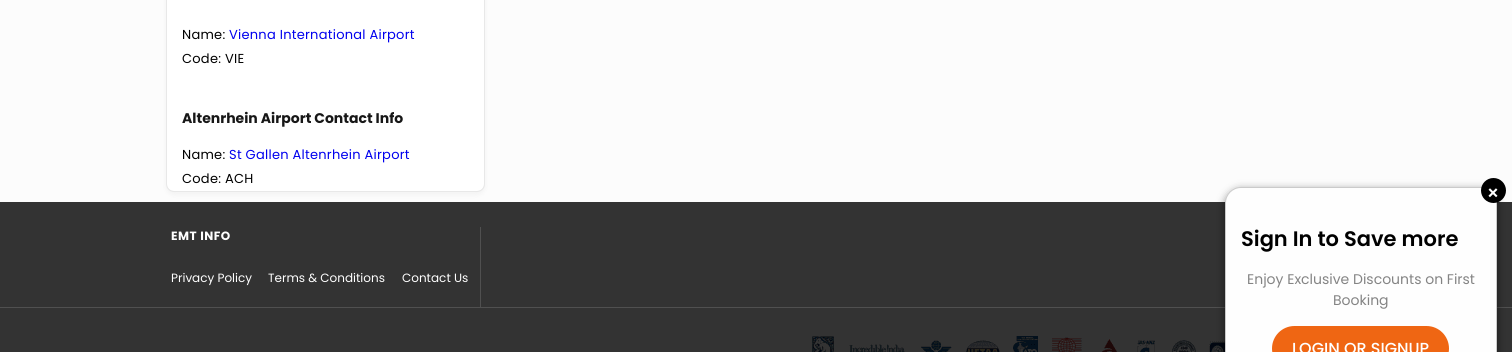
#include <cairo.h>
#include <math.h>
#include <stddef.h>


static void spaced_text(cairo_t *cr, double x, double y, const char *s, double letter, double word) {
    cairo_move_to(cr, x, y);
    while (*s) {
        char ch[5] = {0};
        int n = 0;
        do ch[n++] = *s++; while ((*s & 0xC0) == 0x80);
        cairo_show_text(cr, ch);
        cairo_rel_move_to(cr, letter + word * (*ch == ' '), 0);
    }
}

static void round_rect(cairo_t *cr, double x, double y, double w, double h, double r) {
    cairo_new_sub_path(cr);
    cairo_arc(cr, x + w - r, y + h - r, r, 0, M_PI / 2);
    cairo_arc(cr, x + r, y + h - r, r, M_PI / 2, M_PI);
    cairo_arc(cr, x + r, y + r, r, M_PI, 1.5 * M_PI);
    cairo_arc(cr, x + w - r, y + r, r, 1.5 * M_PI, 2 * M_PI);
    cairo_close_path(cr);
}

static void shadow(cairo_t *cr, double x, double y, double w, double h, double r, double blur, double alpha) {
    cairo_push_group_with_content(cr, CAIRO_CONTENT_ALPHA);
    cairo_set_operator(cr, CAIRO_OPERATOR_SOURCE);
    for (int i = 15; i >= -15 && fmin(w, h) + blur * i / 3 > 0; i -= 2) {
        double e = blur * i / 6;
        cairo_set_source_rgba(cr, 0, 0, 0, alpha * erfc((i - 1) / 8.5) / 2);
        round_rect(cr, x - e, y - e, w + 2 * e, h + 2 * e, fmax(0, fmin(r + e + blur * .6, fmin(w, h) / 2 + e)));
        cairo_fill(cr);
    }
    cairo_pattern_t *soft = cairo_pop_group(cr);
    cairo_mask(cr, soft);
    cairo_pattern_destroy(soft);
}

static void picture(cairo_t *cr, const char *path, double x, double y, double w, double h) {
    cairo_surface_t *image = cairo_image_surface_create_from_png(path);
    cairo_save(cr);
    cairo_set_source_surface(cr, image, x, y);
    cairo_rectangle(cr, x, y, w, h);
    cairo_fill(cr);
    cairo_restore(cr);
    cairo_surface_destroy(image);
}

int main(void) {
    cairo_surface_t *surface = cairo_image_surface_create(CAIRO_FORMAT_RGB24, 1512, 352);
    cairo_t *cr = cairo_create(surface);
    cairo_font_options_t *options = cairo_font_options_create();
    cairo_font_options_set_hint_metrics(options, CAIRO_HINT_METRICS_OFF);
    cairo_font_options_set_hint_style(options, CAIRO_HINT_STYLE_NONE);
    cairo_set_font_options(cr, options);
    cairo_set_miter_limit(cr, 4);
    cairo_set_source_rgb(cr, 0.988, 0.988, 0.988);
    cairo_paint(cr);
    cairo_set_source_rgb(cr, 0.2, 0.2, 0.2);
    cairo_rectangle(cr, 0, 202, 1512, 150);
    cairo_fill(cr);
    cairo_set_source_rgb(cr, 0, 0, 0);
    shadow(cr, 166, -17, 319, 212, 8, 3, 0.04);
    cairo_set_source_rgb(cr, 1, 1, 1);
    round_rect(cr, 167, -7, 317, 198, 7);
    cairo_fill(cr);
    round_rect(cr, 166.5, -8.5, 318, 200, 7.5);
    cairo_set_source_rgb(cr, 0.91, 0.91, 0.91);
    cairo_set_line_width(cr, 1);
    cairo_stroke(cr);
    cairo_select_font_face(cr, "Poppins", CAIRO_FONT_SLANT_NORMAL, CAIRO_FONT_WEIGHT_NORMAL);
    cairo_set_font_size(cr, 13);
    cairo_set_source_rgb(cr, 0, 0, 0);
    spaced_text(cr, 182, 39, "Name:", 0.25, 0);
    cairo_set_source_rgb(cr, 0, 0, 0.933);
    spaced_text(cr, 229, 39, "Vienna International Airport", 0.25, 0);
    cairo_set_source_rgb(cr, 0, 0, 0);
    spaced_text(cr, 182, 63, "Code: VIE", 0.25, 0);
    cairo_select_font_face(cr, "Poppins", CAIRO_FONT_SLANT_NORMAL, CAIRO_FONT_WEIGHT_BOLD);
    cairo_set_font_size(cr, 14);
    cairo_set_source_rgb(cr, 0.09, 0.09, 0.09);
    cairo_move_to(cr, 182, 123);
    cairo_show_text(cr, "Altenrhein Airport Contact Info");
    cairo_select_font_face(cr, "Poppins", CAIRO_FONT_SLANT_NORMAL, CAIRO_FONT_WEIGHT_NORMAL);
    cairo_set_font_size(cr, 13);
    cairo_set_source_rgb(cr, 0, 0, 0);
    spaced_text(cr, 182, 159, "Name:", 0.25, 0);
    cairo_set_source_rgb(cr, 0, 0, 0.933);
    spaced_text(cr, 229, 159, "St Gallen Altenrhein Airport", 0.25, 0);
    cairo_set_source_rgb(cr, 0, 0, 0);
    spaced_text(cr, 182, 183, "Code: ACH", 0.25, 0);
    cairo_set_source_rgb(cr, 0.314, 0.314, 0.314);
    cairo_rectangle(cr, 480, 227, 1, 80);
    cairo_fill(cr);
    cairo_select_font_face(cr, "Poppins", CAIRO_FONT_SLANT_NORMAL, CAIRO_FONT_WEIGHT_BOLD);
    cairo_set_font_size(cr, 12);
    cairo_set_source_rgb(cr, 1, 1, 1);
    spaced_text(cr, 171, 240, "EMT INFO", 0.5, 0);
    cairo_select_font_face(cr, "Poppins", CAIRO_FONT_SLANT_NORMAL, CAIRO_FONT_WEIGHT_NORMAL);
    cairo_move_to(cr, 171, 282);
    cairo_show_text(cr, "Privacy Policy");
    cairo_move_to(cr, 268, 282);
    cairo_show_text(cr, "Terms & Conditions");
    cairo_move_to(cr, 402, 282);
    cairo_show_text(cr, "Contact Us");
    cairo_set_source_rgb(cr, 0.314, 0.314, 0.314);
    cairo_rectangle(cr, 0, 307, 1512, 1);
    cairo_fill(cr);
    picture(cr, "img1.png", 812, 336, 413, 16);
    cairo_set_source_rgb(cr, 0, 0, 0);
    shadow(cr, 1225, 190, 272, 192, 16, 4.5, 0.5);
    cairo_set_source_rgb(cr, 0.996, 0.996, 0.996);
    round_rect(cr, 1225, 187, 272, 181, 16);
    cairo_fill(cr);
    round_rect(cr, 1225.5, 187.5, 271, 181, 15.5);
    cairo_set_source_rgba(cr, 0, 0, 0, 0.2);
    cairo_stroke(cr);
    cairo_set_source_rgb(cr, 0, 0, 0);
    cairo_arc(cr, 1493.5, 190.5, 12.5, 0, 2 * M_PI);
    cairo_fill(cr);
    cairo_select_font_face(cr, "Poppins Medium", CAIRO_FONT_SLANT_NORMAL, CAIRO_FONT_WEIGHT_NORMAL);
    cairo_set_font_size(cr, 20);
    cairo_set_source_rgb(cr, 1, 1, 1);
    cairo_move_to(cr, 1486, 200);
    cairo_show_text(cr, "×");
    cairo_select_font_face(cr, "Poppins SemiBold", CAIRO_FONT_SLANT_NORMAL, CAIRO_FONT_WEIGHT_NORMAL);
    cairo_set_font_size(cr, 21);
    cairo_set_source_rgb(cr, 0, 0, 0);
    cairo_move_to(cr, 1241, 246);
    cairo_show_text(cr, "Sign In to Save more");
    cairo_select_font_face(cr, "Poppins", CAIRO_FONT_SLANT_NORMAL, CAIRO_FONT_WEIGHT_NORMAL);
    cairo_set_font_size(cr, 14);
    cairo_set_source_rgb(cr, 0.518, 0.518, 0.518);
    cairo_move_to(cr, 1247, 284);
    cairo_show_text(cr, "Enjoy Exclusive Discounts on First");
    cairo_move_to(cr, 1333, 305);
    cairo_show_text(cr, "Booking");
    cairo_set_source_rgb(cr, 0.937, 0.4, 0.078);
    round_rect(cr, 1272, 326, 177, 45, 22.5);
    cairo_fill(cr);
    cairo_select_font_face(cr, "Poppins Medium", CAIRO_FONT_SLANT_NORMAL, CAIRO_FONT_WEIGHT_NORMAL);
    cairo_set_font_size(cr, 16);
    cairo_set_source_rgb(cr, 1, 1, 1);
    cairo_move_to(cr, 1292, 354);
    cairo_show_text(cr, "LOGIN OR SIGNUP");
    cairo_surface_write_to_png(surface, "page.png");
    cairo_font_options_destroy(options);
    cairo_destroy(cr);
    cairo_surface_destroy(surface);
    return 0;
}
